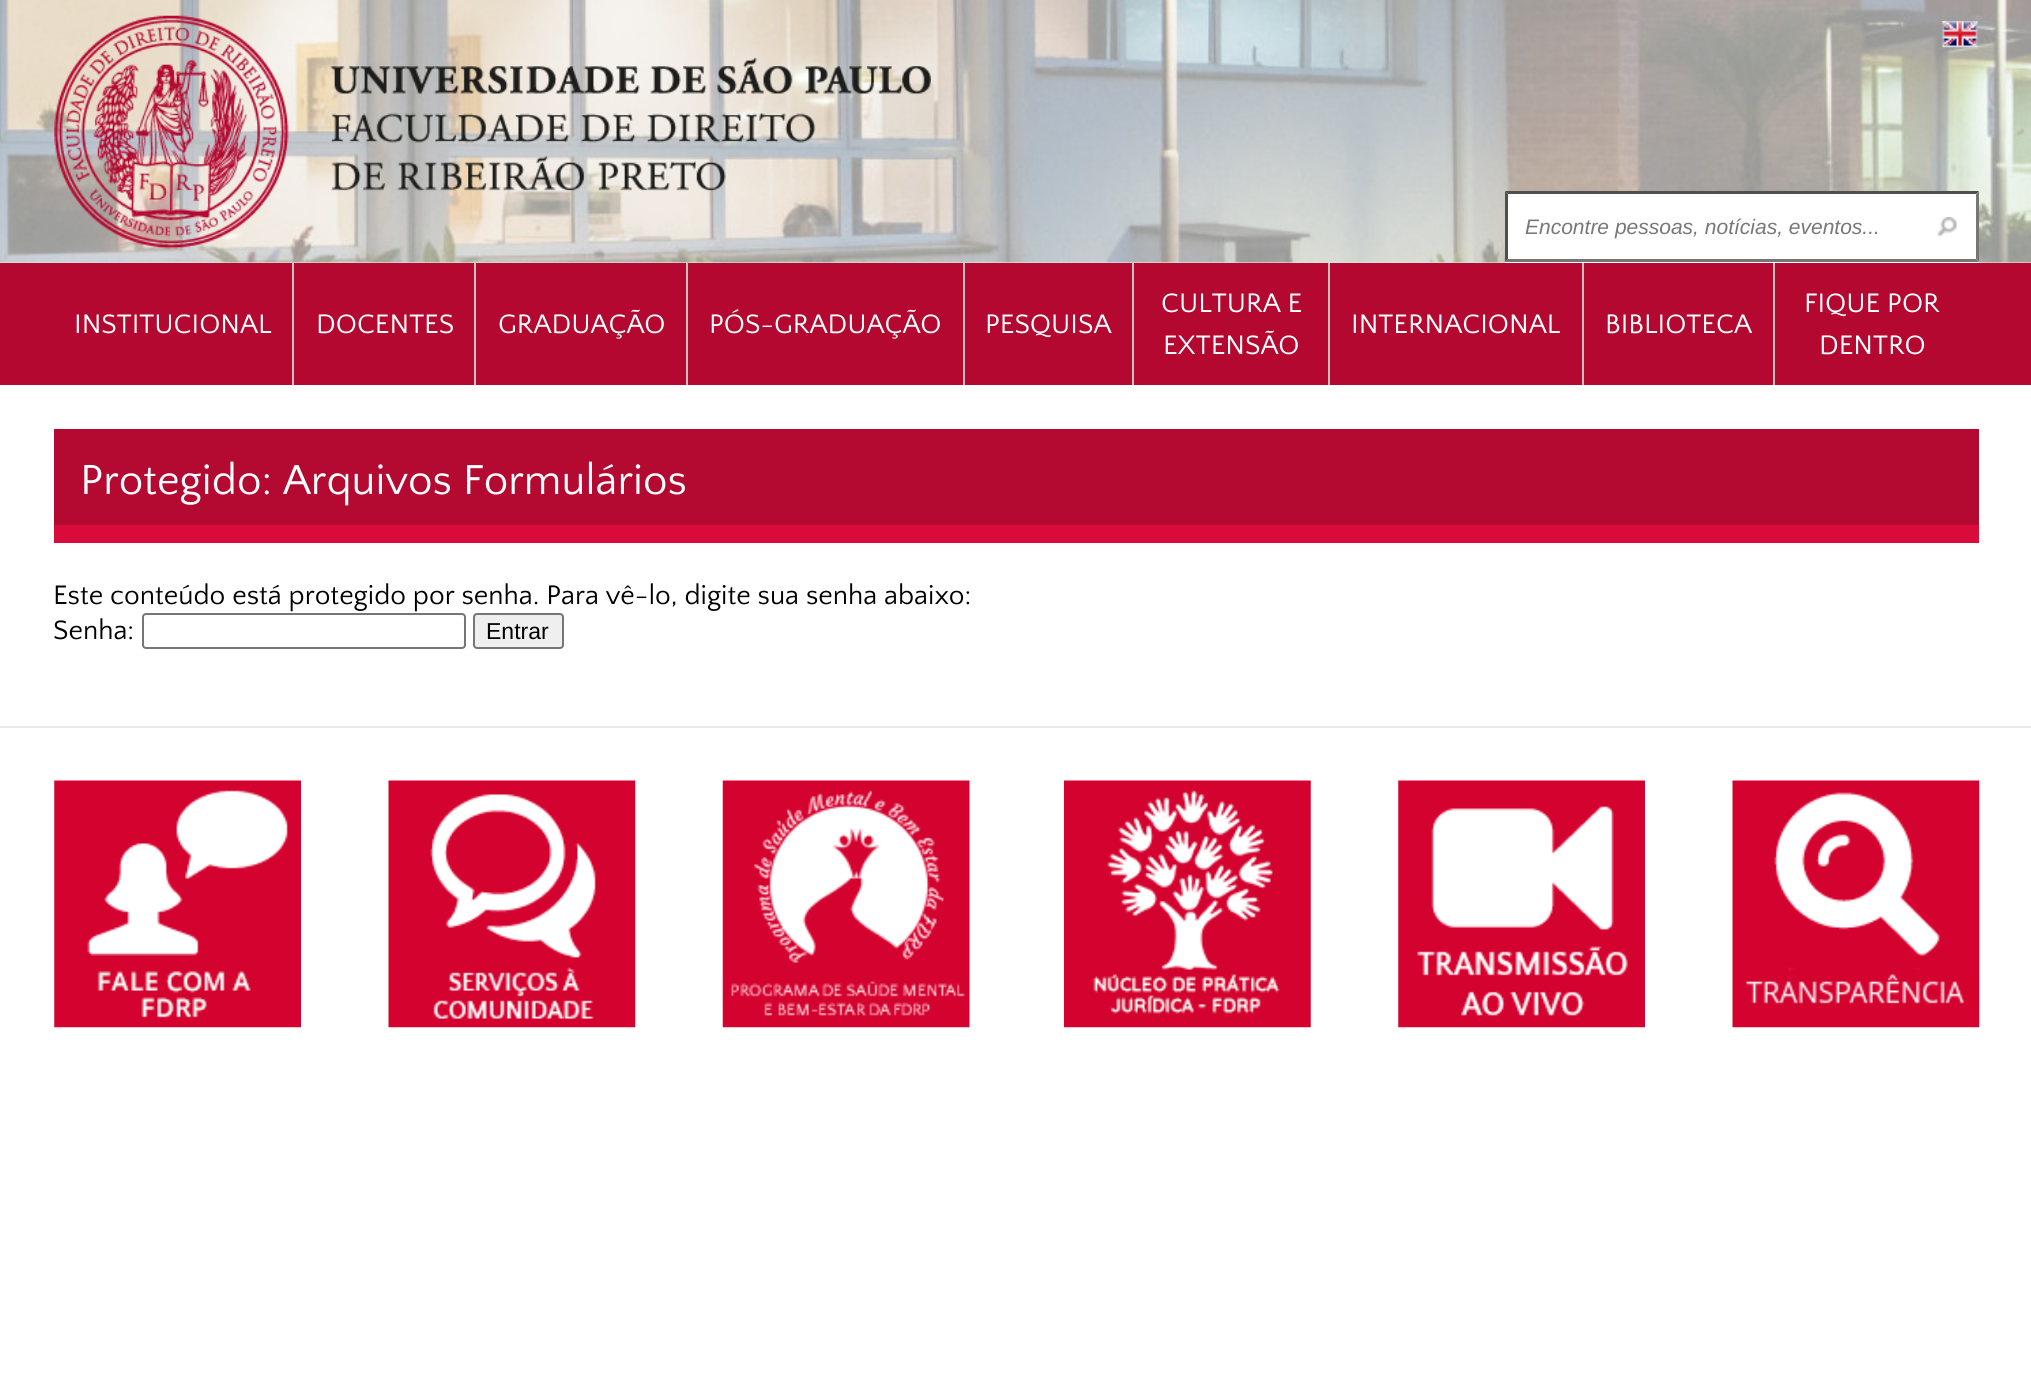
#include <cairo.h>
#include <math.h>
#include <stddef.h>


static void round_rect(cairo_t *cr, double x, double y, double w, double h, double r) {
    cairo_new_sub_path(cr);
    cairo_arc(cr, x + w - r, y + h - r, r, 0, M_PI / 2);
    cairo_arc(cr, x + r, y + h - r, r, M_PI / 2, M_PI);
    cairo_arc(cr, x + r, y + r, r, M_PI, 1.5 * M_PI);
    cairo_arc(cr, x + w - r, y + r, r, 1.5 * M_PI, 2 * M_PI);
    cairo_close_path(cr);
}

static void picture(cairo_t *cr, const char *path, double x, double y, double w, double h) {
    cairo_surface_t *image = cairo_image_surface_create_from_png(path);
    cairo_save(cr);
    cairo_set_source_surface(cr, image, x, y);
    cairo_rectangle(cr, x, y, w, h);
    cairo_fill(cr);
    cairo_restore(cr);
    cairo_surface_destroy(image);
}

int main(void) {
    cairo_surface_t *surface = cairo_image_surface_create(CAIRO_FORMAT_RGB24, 2031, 1385);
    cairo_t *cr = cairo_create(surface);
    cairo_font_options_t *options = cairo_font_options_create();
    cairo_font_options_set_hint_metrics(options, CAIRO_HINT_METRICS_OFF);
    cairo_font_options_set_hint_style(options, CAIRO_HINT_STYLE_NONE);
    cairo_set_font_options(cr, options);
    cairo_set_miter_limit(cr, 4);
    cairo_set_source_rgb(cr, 0.949, 0.929, 0.906);
    cairo_paint(cr);
    picture(cr, "img1.png", 0, 0, 2031, 263);
    picture(cr, "img2.png", 54, 15, 877, 234);
    picture(cr, "img3.png", 1942, 21, 36, 27);
    cairo_set_source_rgb(cr, 1, 1, 1);
    cairo_rectangle(cr, 1505, 191, 474, 72);
    cairo_fill(cr);
    picture(cr, "img4.png", 1937, 217, 20, 20);
    cairo_set_source_rgb(cr, 0.31, 0.31, 0.31);
    cairo_new_path(cr);
    cairo_move_to(cr, 1505, 191);
    cairo_line_to(cr, 1979, 191);
    cairo_line_to(cr, 1976, 194);
    cairo_line_to(cr, 1508, 194);
    cairo_close_path(cr);
    cairo_fill(cr);
    cairo_set_source_rgb(cr, 0.463, 0.463, 0.463);
    cairo_new_path(cr);
    cairo_move_to(cr, 1979, 191);
    cairo_line_to(cr, 1979, 262);
    cairo_line_to(cr, 1976, 259);
    cairo_line_to(cr, 1976, 194);
    cairo_close_path(cr);
    cairo_fill(cr);
    cairo_new_path(cr);
    cairo_move_to(cr, 1979, 262);
    cairo_line_to(cr, 1505, 262);
    cairo_line_to(cr, 1508, 259);
    cairo_line_to(cr, 1976, 259);
    cairo_close_path(cr);
    cairo_fill(cr);
    cairo_set_source_rgb(cr, 0.31, 0.31, 0.31);
    cairo_new_path(cr);
    cairo_move_to(cr, 1505, 262);
    cairo_line_to(cr, 1505, 191);
    cairo_line_to(cr, 1508, 194);
    cairo_line_to(cr, 1508, 259);
    cairo_close_path(cr);
    cairo_fill(cr);
    cairo_select_font_face(cr, "Liberation Sans", CAIRO_FONT_SLANT_ITALIC, CAIRO_FONT_WEIGHT_NORMAL);
    cairo_set_font_size(cr, 21);
    cairo_set_source_rgb(cr, 0.475, 0.471, 0.471);
    cairo_move_to(cr, 1525, 234);
    cairo_show_text(cr, "Encontre pessoas, notícias, eventos...");
    cairo_set_source_rgb(cr, 0.706, 0.035, 0.192);
    cairo_rectangle(cr, 0, 263, 2031, 122);
    cairo_fill(cr);
    cairo_set_source_rgb(cr, 0.753, 0.753, 0.753);
    cairo_rectangle(cr, 292, 263, 2, 122);
    cairo_fill(cr);
    cairo_select_font_face(cr, "Quattrocento Sans", CAIRO_FONT_SLANT_NORMAL, CAIRO_FONT_WEIGHT_NORMAL);
    cairo_set_font_size(cr, 28);
    cairo_set_source_rgb(cr, 1, 1, 1);
    cairo_move_to(cr, 74, 333);
    cairo_show_text(cr, "INSTITUCIONAL");
    cairo_set_source_rgb(cr, 0.753, 0.753, 0.753);
    cairo_rectangle(cr, 474, 263, 2, 122);
    cairo_fill(cr);
    cairo_set_source_rgb(cr, 1, 1, 1);
    cairo_move_to(cr, 316, 333);
    cairo_show_text(cr, "DOCENTES");
    cairo_set_source_rgb(cr, 0.753, 0.753, 0.753);
    cairo_rectangle(cr, 686, 263, 2, 122);
    cairo_fill(cr);
    cairo_set_source_rgb(cr, 1, 1, 1);
    cairo_move_to(cr, 498, 333);
    cairo_show_text(cr, "GRADUAÇÃO");
    cairo_set_source_rgb(cr, 0.753, 0.753, 0.753);
    cairo_rectangle(cr, 963, 263, 2, 122);
    cairo_fill(cr);
    cairo_set_source_rgb(cr, 1, 1, 1);
    cairo_move_to(cr, 709, 333);
    cairo_show_text(cr, "PÓS-GRADUAÇÃO");
    cairo_set_source_rgb(cr, 0.753, 0.753, 0.753);
    cairo_rectangle(cr, 1132, 263, 2, 122);
    cairo_fill(cr);
    cairo_set_source_rgb(cr, 1, 1, 1);
    cairo_move_to(cr, 985, 333);
    cairo_show_text(cr, "PESQUISA");
    cairo_set_source_rgb(cr, 0.753, 0.753, 0.753);
    cairo_rectangle(cr, 1328, 263, 2, 122);
    cairo_fill(cr);
    cairo_set_source_rgb(cr, 1, 1, 1);
    cairo_move_to(cr, 1161, 312);
    cairo_show_text(cr, "CULTURA E");
    cairo_move_to(cr, 1163, 354);
    cairo_show_text(cr, "EXTENSÃO");
    cairo_set_source_rgb(cr, 0.753, 0.753, 0.753);
    cairo_rectangle(cr, 1582, 263, 2, 122);
    cairo_fill(cr);
    cairo_set_source_rgb(cr, 1, 1, 1);
    cairo_move_to(cr, 1351, 333);
    cairo_show_text(cr, "INTERNACIONAL");
    cairo_set_source_rgb(cr, 0.753, 0.753, 0.753);
    cairo_rectangle(cr, 1773, 263, 2, 122);
    cairo_fill(cr);
    cairo_set_source_rgb(cr, 1, 1, 1);
    cairo_move_to(cr, 1605, 333);
    cairo_show_text(cr, "BIBLIOTECA");
    cairo_move_to(cr, 1804, 312);
    cairo_show_text(cr, "FIQUE POR");
    cairo_move_to(cr, 1819, 354);
    cairo_show_text(cr, "DENTRO");
    cairo_rectangle(cr, 0, 385, 2031, 1000);
    cairo_fill(cr);
    cairo_set_source_rgb(cr, 0.706, 0.039, 0.192);
    cairo_rectangle(cr, 54, 429, 1925, 96);
    cairo_fill(cr);
    cairo_set_font_size(cr, 43.75);
    cairo_set_source_rgb(cr, 1, 1, 1);
    cairo_move_to(cr, 80, 494);
    cairo_show_text(cr, "Protegido: Arquivos Formulários");
    cairo_set_source_rgb(cr, 0.847, 0.043, 0.231);
    cairo_rectangle(cr, 54, 525, 1925, 18);
    cairo_fill(cr);
    cairo_set_font_size(cr, 28);
    cairo_set_source_rgb(cr, 0, 0, 0);
    cairo_move_to(cr, 53, 604);
    cairo_show_text(cr, "Este conteúdo está protegido por senha. Para vê-lo, digite sua senha abaixo:");
    cairo_move_to(cr, 53, 639);
    cairo_show_text(cr, "Senha:");
    round_rect(cr, 143, 614, 322, 34, 3);
    cairo_set_source_rgb(cr, 0.463, 0.463, 0.463);
    cairo_stroke(cr);
    cairo_set_source_rgb(cr, 0.937, 0.937, 0.937);
    round_rect(cr, 474, 614, 89, 34, 3);
    cairo_fill_preserve(cr);
    cairo_set_source_rgb(cr, 0.463, 0.463, 0.463);
    cairo_stroke(cr);
    cairo_select_font_face(cr, "Liberation Sans", CAIRO_FONT_SLANT_NORMAL, CAIRO_FONT_WEIGHT_NORMAL);
    cairo_set_font_size(cr, 23);
    cairo_set_source_rgb(cr, 0, 0, 0);
    cairo_move_to(cr, 486, 639);
    cairo_show_text(cr, "Entrar");
    cairo_set_source_rgb(cr, 0.914, 0.914, 0.914);
    cairo_rectangle(cr, 0, 726, 2031, 2);
    cairo_fill(cr);
    picture(cr, "img5.png", 54, 780, 247, 248);
    picture(cr, "img6.png", 388, 780, 248, 248);
    picture(cr, "img7.png", 722, 780, 248, 248);
    picture(cr, "img8.png", 1064, 780, 247, 248);
    picture(cr, "img9.png", 1398, 780, 247, 248);
    picture(cr, "img10.png", 1732, 780, 248, 248);
    cairo_surface_write_to_png(surface, "page.png");
    cairo_font_options_destroy(options);
    cairo_destroy(cr);
    cairo_surface_destroy(surface);
    return 0;
}
